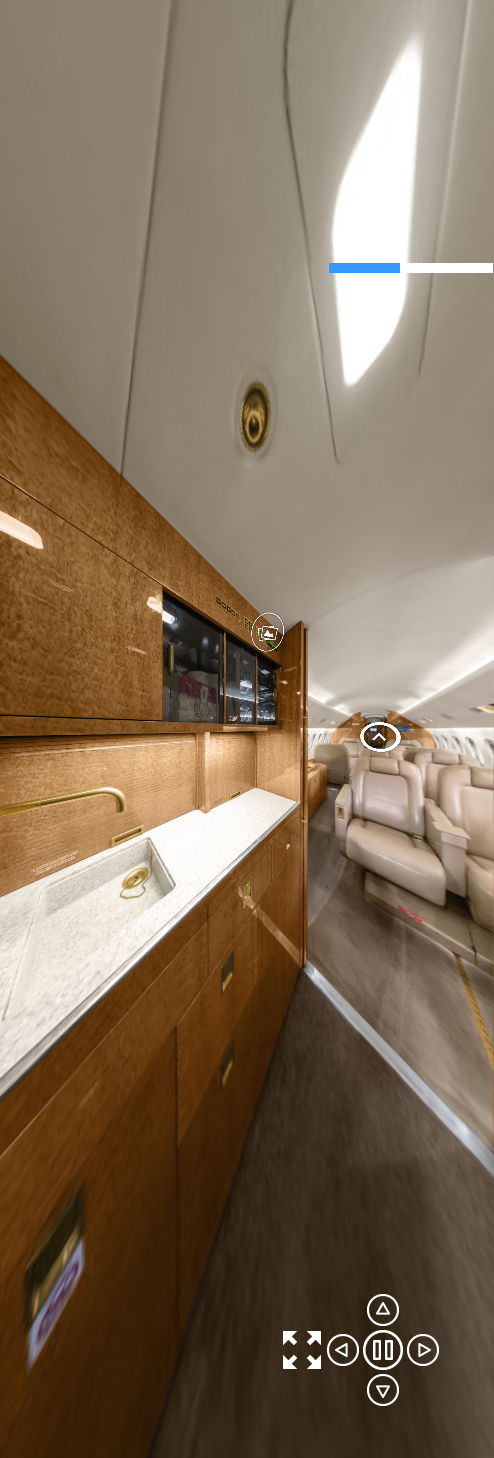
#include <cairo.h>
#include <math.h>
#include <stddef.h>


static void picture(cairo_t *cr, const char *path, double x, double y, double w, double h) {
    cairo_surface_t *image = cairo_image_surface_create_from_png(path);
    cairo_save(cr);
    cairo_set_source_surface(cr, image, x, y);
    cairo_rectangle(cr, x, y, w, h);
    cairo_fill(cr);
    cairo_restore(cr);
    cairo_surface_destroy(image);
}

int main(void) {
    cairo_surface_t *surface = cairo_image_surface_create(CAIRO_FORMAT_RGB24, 494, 1458);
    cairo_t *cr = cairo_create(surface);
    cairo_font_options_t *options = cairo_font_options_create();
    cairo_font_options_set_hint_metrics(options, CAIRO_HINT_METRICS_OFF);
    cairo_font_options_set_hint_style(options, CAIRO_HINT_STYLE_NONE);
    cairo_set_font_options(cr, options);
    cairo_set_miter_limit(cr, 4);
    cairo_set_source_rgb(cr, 1, 1, 1);
    cairo_paint(cr);
    picture(cr, "img1.png", 0, 0, 494, 1458);
    cairo_set_source_rgb(cr, 0.2, 0.6, 1);
    cairo_rectangle(cr, 329, 263, 71, 10);
    cairo_fill(cr);
    cairo_set_source_rgb(cr, 1, 1, 1);
    cairo_rectangle(cr, 405, 263, 88, 10);
    cairo_fill(cr);
    picture(cr, "img2.png", 283, 1331, 38, 38);
    picture(cr, "img3.png", 327, 1334, 32, 32);
    picture(cr, "img4.png", 367, 1294, 32, 32);
    picture(cr, "img5.png", 363, 1330, 40, 40);
    picture(cr, "img6.png", 367, 1374, 32, 32);
    picture(cr, "img7.png", 407, 1334, 32, 32);
    cairo_surface_write_to_png(surface, "page.png");
    cairo_font_options_destroy(options);
    cairo_destroy(cr);
    cairo_surface_destroy(surface);
    return 0;
}
